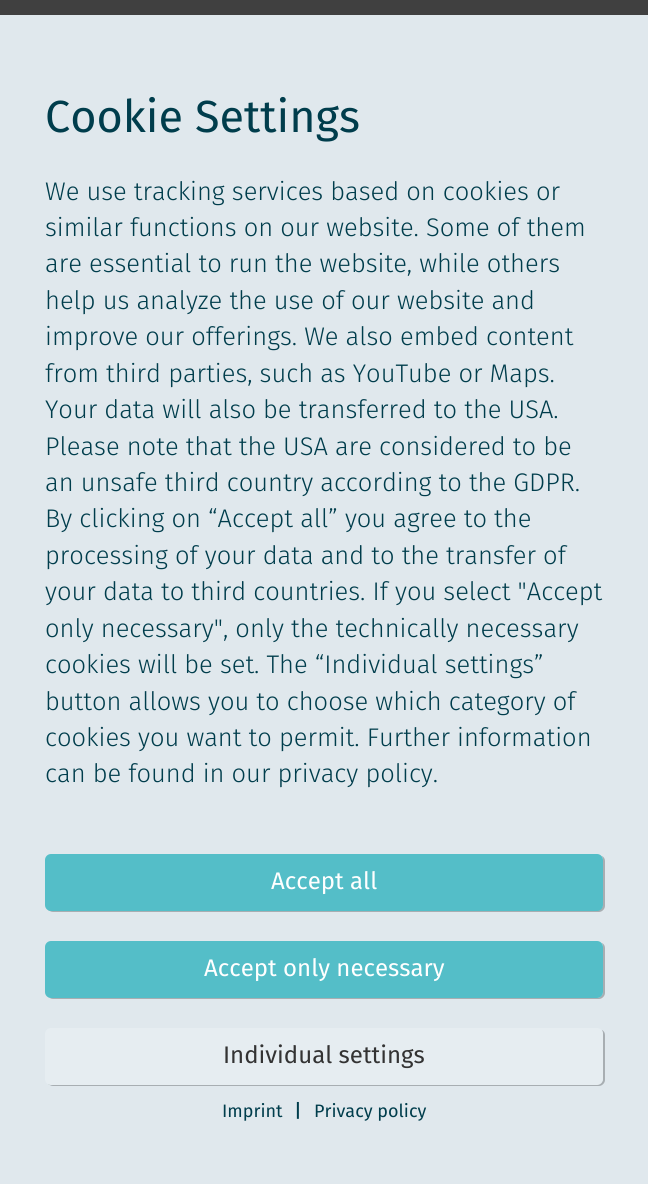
#include <cairo.h>
#include <math.h>
#include <stddef.h>


static void round_rect(cairo_t *cr, double x, double y, double w, double h, double r) {
    cairo_new_sub_path(cr);
    cairo_arc(cr, x + w - r, y + h - r, r, 0, M_PI / 2);
    cairo_arc(cr, x + r, y + h - r, r, M_PI / 2, M_PI);
    cairo_arc(cr, x + r, y + r, r, M_PI, 1.5 * M_PI);
    cairo_arc(cr, x + w - r, y + r, r, 1.5 * M_PI, 2 * M_PI);
    cairo_close_path(cr);
}

int main(void) {
    cairo_surface_t *surface = cairo_image_surface_create(CAIRO_FORMAT_RGB24, 648, 1184);
    cairo_t *cr = cairo_create(surface);
    cairo_font_options_t *options = cairo_font_options_create();
    cairo_font_options_set_hint_metrics(options, CAIRO_HINT_METRICS_OFF);
    cairo_font_options_set_hint_style(options, CAIRO_HINT_STYLE_NONE);
    cairo_set_font_options(cr, options);
    cairo_set_miter_limit(cr, 4);
    cairo_set_source_rgb(cr, 0.251, 0.251, 0.251);
    cairo_paint(cr);
    cairo_set_source_rgb(cr, 0.878, 0.91, 0.929);
    cairo_rectangle(cr, 0, 15, 648, 1169);
    cairo_fill(cr);
    cairo_select_font_face(cr, "Fira Sans", CAIRO_FONT_SLANT_NORMAL, CAIRO_FONT_WEIGHT_NORMAL);
    cairo_set_font_size(cr, 45);
    cairo_set_source_rgb(cr, 0, 0.239, 0.298);
    cairo_move_to(cr, 45, 132);
    cairo_show_text(cr, "Cookie Settings");
    cairo_select_font_face(cr, "Fira Sans Light", CAIRO_FONT_SLANT_NORMAL, CAIRO_FONT_WEIGHT_NORMAL);
    cairo_set_font_size(cr, 25.5);
    cairo_move_to(cr, 45, 200);
    cairo_show_text(cr, "We use tracking services based on cookies or");
    cairo_move_to(cr, 45, 236);
    cairo_show_text(cr, "similar functions on our website. Some of them");
    cairo_move_to(cr, 45, 272);
    cairo_show_text(cr, "are essential to run the website, while others");
    cairo_move_to(cr, 45, 309);
    cairo_show_text(cr, "help us analyze the use of our website and");
    cairo_move_to(cr, 45, 345);
    cairo_show_text(cr, "improve our offerings. We also embed content");
    cairo_move_to(cr, 45, 382);
    cairo_show_text(cr, "from third parties, such as YouTube or Maps.");
    cairo_move_to(cr, 45, 418);
    cairo_show_text(cr, "Your data will also be transferred to the USA.");
    cairo_move_to(cr, 45, 455);
    cairo_show_text(cr, "Please note that the USA are considered to be");
    cairo_move_to(cr, 45, 491);
    cairo_show_text(cr, "an unsafe third country according to the GDPR.");
    cairo_move_to(cr, 45, 527);
    cairo_show_text(cr, "By clicking on “Accept all” you agree to the");
    cairo_move_to(cr, 45, 564);
    cairo_show_text(cr, "processing of your data and to the transfer of");
    cairo_move_to(cr, 45, 600);
    cairo_show_text(cr, "your data to third countries. If you select \"Accept");
    cairo_move_to(cr, 45, 637);
    cairo_show_text(cr, "only necessary\", only the technically necessary");
    cairo_move_to(cr, 45, 673);
    cairo_show_text(cr, "cookies will be set. The “Individual settings”");
    cairo_move_to(cr, 45, 710);
    cairo_show_text(cr, "button allows you to choose which category of");
    cairo_move_to(cr, 45, 746);
    cairo_show_text(cr, "cookies you want to permit. Further information");
    cairo_move_to(cr, 45, 782);
    cairo_show_text(cr, "can be found in our privacy policy.");
    cairo_set_source_rgb(cr, 0.659, 0.682, 0.698);
    cairo_new_path(cr);
    cairo_move_to(cr, 48, 910);
    cairo_curve_to(cr, 50, 911, 51, 912, 53, 912);
    cairo_line_to(cr, 599, 912);
    cairo_curve_to(cr, 602, 912, 605, 909, 605, 906);
    cairo_line_to(cr, 605, 861);
    cairo_curve_to(cr, 605, 859, 604, 857, 602, 856);
    cairo_curve_to(cr, 602, 857, 603, 858, 603, 860);
    cairo_line_to(cr, 603, 904);
    cairo_curve_to(cr, 603, 908, 600, 910, 597, 910);
    cairo_line_to(cr, 51, 910);
    cairo_close_path(cr);
    cairo_fill(cr);
    cairo_set_source_rgb(cr, 0.329, 0.745, 0.784);
    round_rect(cr, 45, 854, 558, 57, 6);
    cairo_fill(cr);
    cairo_select_font_face(cr, "Fira Sans", CAIRO_FONT_SLANT_NORMAL, CAIRO_FONT_WEIGHT_NORMAL);
    cairo_set_font_size(cr, 24);
    cairo_set_source_rgb(cr, 1, 1, 1);
    cairo_move_to(cr, 271, 889);
    cairo_show_text(cr, "Accept all");
    cairo_set_source_rgb(cr, 0.659, 0.682, 0.698);
    cairo_new_path(cr);
    cairo_move_to(cr, 48, 997);
    cairo_curve_to(cr, 50, 998, 51, 999, 53, 999);
    cairo_line_to(cr, 599, 999);
    cairo_curve_to(cr, 602, 999, 605, 996, 605, 993);
    cairo_line_to(cr, 605, 948);
    cairo_curve_to(cr, 605, 946, 604, 944, 602, 943);
    cairo_curve_to(cr, 602, 944, 603, 945, 603, 946);
    cairo_line_to(cr, 603, 992);
    cairo_curve_to(cr, 603, 995, 600, 998, 597, 998);
    cairo_line_to(cr, 51, 998);
    cairo_close_path(cr);
    cairo_fill(cr);
    cairo_set_source_rgb(cr, 0.329, 0.745, 0.784);
    round_rect(cr, 45, 941, 558, 57, 6);
    cairo_fill(cr);
    cairo_set_source_rgb(cr, 1, 1, 1);
    cairo_move_to(cr, 204, 976);
    cairo_show_text(cr, "Accept only necessary");
    cairo_set_source_rgb(cr, 0.659, 0.682, 0.698);
    cairo_new_path(cr);
    cairo_move_to(cr, 48, 1084);
    cairo_curve_to(cr, 50, 1085, 51, 1086, 53, 1086);
    cairo_line_to(cr, 599, 1086);
    cairo_curve_to(cr, 602, 1086, 605, 1083, 605, 1080);
    cairo_line_to(cr, 605, 1035);
    cairo_curve_to(cr, 605, 1033, 604, 1031, 602, 1030);
    cairo_curve_to(cr, 602, 1031, 603, 1032, 603, 1034);
    cairo_line_to(cr, 603, 1078);
    cairo_curve_to(cr, 603, 1082, 600, 1084, 597, 1084);
    cairo_line_to(cr, 51, 1084);
    cairo_close_path(cr);
    cairo_fill(cr);
    cairo_set_source_rgb(cr, 0.902, 0.929, 0.945);
    round_rect(cr, 45, 1028, 558, 57, 6);
    cairo_fill(cr);
    cairo_set_source_rgb(cr, 0.2, 0.2, 0.2);
    cairo_move_to(cr, 223, 1063);
    cairo_show_text(cr, "Individual settings");
    cairo_set_font_size(cr, 18);
    cairo_set_source_rgb(cr, 0, 0.239, 0.298);
    cairo_move_to(cr, 222, 1117);
    cairo_show_text(cr, "Imprint");
    cairo_select_font_face(cr, "Fira Sans", CAIRO_FONT_SLANT_NORMAL, CAIRO_FONT_WEIGHT_BOLD);
    cairo_move_to(cr, 294, 1117);
    cairo_show_text(cr, "|");
    cairo_select_font_face(cr, "Fira Sans", CAIRO_FONT_SLANT_NORMAL, CAIRO_FONT_WEIGHT_NORMAL);
    cairo_move_to(cr, 314, 1117);
    cairo_show_text(cr, "Privacy policy");
    cairo_surface_write_to_png(surface, "page.png");
    cairo_font_options_destroy(options);
    cairo_destroy(cr);
    cairo_surface_destroy(surface);
    return 0;
}
